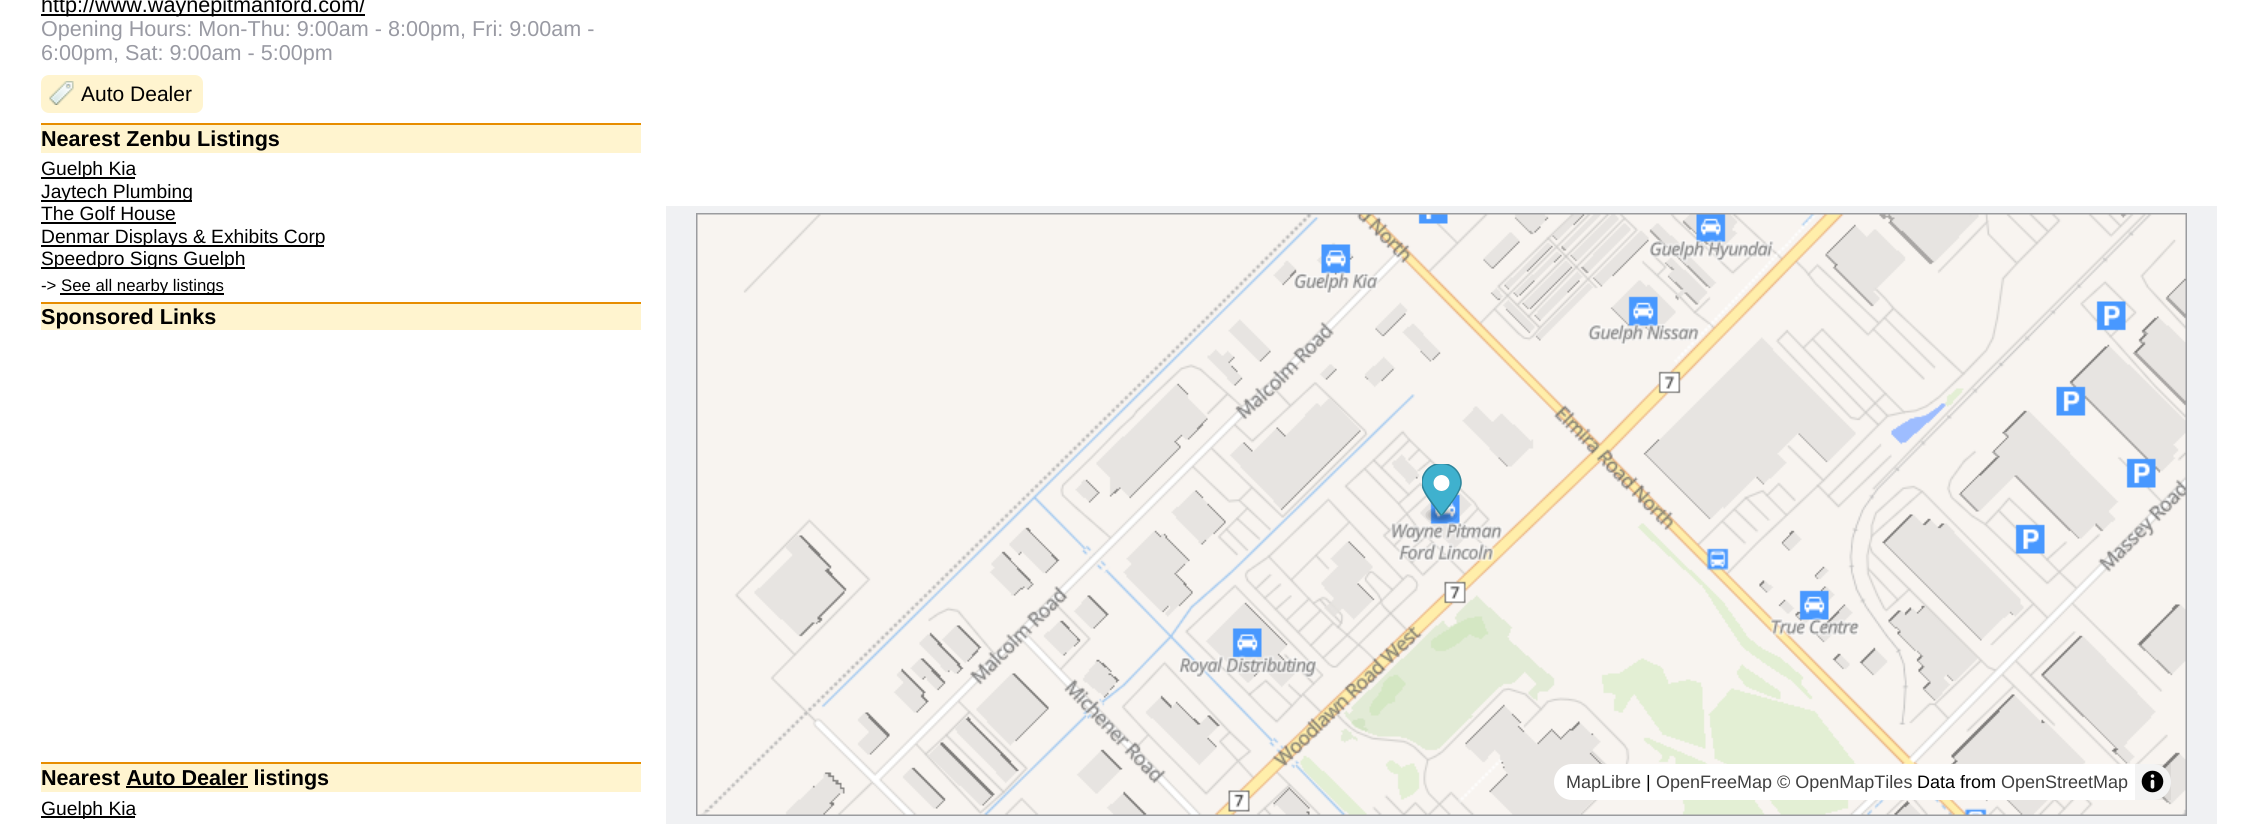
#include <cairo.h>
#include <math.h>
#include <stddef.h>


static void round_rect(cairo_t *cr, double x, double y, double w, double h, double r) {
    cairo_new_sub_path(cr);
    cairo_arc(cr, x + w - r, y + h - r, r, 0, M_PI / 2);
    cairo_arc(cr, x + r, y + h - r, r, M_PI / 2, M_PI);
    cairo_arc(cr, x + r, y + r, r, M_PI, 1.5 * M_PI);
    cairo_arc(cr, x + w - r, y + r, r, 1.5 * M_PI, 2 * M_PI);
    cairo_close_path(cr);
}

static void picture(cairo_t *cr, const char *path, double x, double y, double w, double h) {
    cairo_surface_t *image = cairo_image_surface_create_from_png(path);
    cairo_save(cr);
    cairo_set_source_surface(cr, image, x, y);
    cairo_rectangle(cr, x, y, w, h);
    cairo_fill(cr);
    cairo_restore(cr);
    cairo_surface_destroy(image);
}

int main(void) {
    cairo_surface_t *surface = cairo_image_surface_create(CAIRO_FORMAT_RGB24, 2265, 826);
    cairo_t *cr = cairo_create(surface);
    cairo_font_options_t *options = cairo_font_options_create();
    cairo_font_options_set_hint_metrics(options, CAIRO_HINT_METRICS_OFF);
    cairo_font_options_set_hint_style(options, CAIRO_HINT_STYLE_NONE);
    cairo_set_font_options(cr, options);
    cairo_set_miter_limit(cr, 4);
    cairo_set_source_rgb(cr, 1, 1, 1);
    cairo_paint(cr);
    cairo_set_source_rgb(cr, 0, 0, 0);
    cairo_rectangle(cr, 41, 14, 324, 2);
    cairo_fill(cr);
    cairo_select_font_face(cr, "Liberation Sans", CAIRO_FONT_SLANT_NORMAL, CAIRO_FONT_WEIGHT_NORMAL);
    cairo_set_font_size(cr, 21.6);
    cairo_move_to(cr, 41, 12);
    cairo_show_text(cr, "http://www.waynepitmanford.com/");
    cairo_set_source_rgb(cr, 0.6, 0.604, 0.639);
    cairo_move_to(cr, 41, 36);
    cairo_show_text(cr, "Opening Hours: Mon-Thu: 9:00am - 8:00pm, Fri: 9:00am -");
    cairo_move_to(cr, 41, 60);
    cairo_show_text(cr, "6:00pm, Sat: 9:00am - 5:00pm");
    cairo_set_source_rgb(cr, 1, 0.957, 0.812);
    round_rect(cr, 41, 75, 162, 38, 8);
    cairo_fill(cr);
    picture(cr, "img1.png", 49, 81, 25, 24);
    cairo_set_font_size(cr, 21);
    cairo_set_source_rgb(cr, 0, 0, 0);
    cairo_move_to(cr, 81, 101);
    cairo_show_text(cr, "Auto Dealer");
    cairo_set_source_rgb(cr, 1, 0.957, 0.812);
    cairo_rectangle(cr, 41, 125, 600, 28);
    cairo_fill(cr);
    cairo_set_source_rgb(cr, 0.906, 0.553, 0);
    cairo_rectangle(cr, 41, 123, 600, 2);
    cairo_fill(cr);
    cairo_select_font_face(cr, "Liberation Sans", CAIRO_FONT_SLANT_NORMAL, CAIRO_FONT_WEIGHT_BOLD);
    cairo_set_font_size(cr, 21.6);
    cairo_set_source_rgb(cr, 0, 0, 0);
    cairo_move_to(cr, 41, 146);
    cairo_show_text(cr, "Nearest Zenbu Listings");
    cairo_rectangle(cr, 41, 177, 94, 2);
    cairo_fill(cr);
    cairo_select_font_face(cr, "Liberation Sans", CAIRO_FONT_SLANT_NORMAL, CAIRO_FONT_WEIGHT_NORMAL);
    cairo_set_font_size(cr, 19.25);
    cairo_move_to(cr, 41, 175);
    cairo_show_text(cr, "Guelph Kia");
    cairo_rectangle(cr, 41, 200, 151, 2);
    cairo_fill(cr);
    cairo_move_to(cr, 41, 198);
    cairo_show_text(cr, "Jaytech Plumbing");
    cairo_move_to(cr, 41, 220);
    cairo_show_text(cr, "The Golf House");
    cairo_rectangle(cr, 41, 222, 135, 2);
    cairo_fill(cr);
    cairo_rectangle(cr, 41, 245, 283, 2);
    cairo_fill(cr);
    cairo_move_to(cr, 41, 243);
    cairo_show_text(cr, "Denmar Displays & Exhibits Corp");
    cairo_rectangle(cr, 41, 267, 204, 2);
    cairo_fill(cr);
    cairo_move_to(cr, 41, 265);
    cairo_show_text(cr, "Speedpro Signs Guelph");
    cairo_set_font_size(cr, 16.75);
    cairo_move_to(cr, 41, 291);
    cairo_show_text(cr, "->");
    cairo_rectangle(cr, 60, 293, 164, 2);
    cairo_fill(cr);
    cairo_move_to(cr, 61, 291);
    cairo_show_text(cr, "See all nearby listings");
    cairo_set_source_rgb(cr, 1, 0.957, 0.812);
    cairo_rectangle(cr, 41, 304, 600, 26);
    cairo_fill(cr);
    cairo_set_source_rgb(cr, 0.906, 0.553, 0);
    cairo_rectangle(cr, 41, 302, 600, 2);
    cairo_fill(cr);
    cairo_select_font_face(cr, "Liberation Sans", CAIRO_FONT_SLANT_NORMAL, CAIRO_FONT_WEIGHT_BOLD);
    cairo_set_font_size(cr, 21.6);
    cairo_set_source_rgb(cr, 0, 0, 0);
    cairo_move_to(cr, 41, 324);
    cairo_show_text(cr, "Sponsored Links");
    cairo_set_source_rgb(cr, 1, 0.957, 0.812);
    cairo_rectangle(cr, 41, 764, 600, 28);
    cairo_fill(cr);
    cairo_set_source_rgb(cr, 0.906, 0.553, 0);
    cairo_rectangle(cr, 41, 762, 600, 2);
    cairo_fill(cr);
    cairo_set_source_rgb(cr, 0, 0, 0);
    cairo_move_to(cr, 41, 785);
    cairo_show_text(cr, "Nearest Auto Dealer listings");
    cairo_rectangle(cr, 126, 786, 122, 2);
    cairo_fill(cr);
    cairo_rectangle(cr, 41, 816, 94, 2);
    cairo_fill(cr);
    cairo_select_font_face(cr, "Liberation Sans", CAIRO_FONT_SLANT_NORMAL, CAIRO_FONT_WEIGHT_NORMAL);
    cairo_set_font_size(cr, 19.25);
    cairo_move_to(cr, 41, 815);
    cairo_show_text(cr, "Guelph Kia");
    cairo_set_source_rgb(cr, 0.941, 0.945, 0.953);
    cairo_rectangle(cr, 666, 206, 1551, 618);
    cairo_fill(cr);
    cairo_rectangle(cr, 697, 214, 1489, 601);
    cairo_set_source_rgb(cr, 0.608, 0.612, 0.624);
    cairo_stroke(cr);
    picture(cr, "img2.png", 697, 214, 1489, 601);
    picture(cr, "img3.png", 1422, 464, 40, 59);
    cairo_set_source_rgb(cr, 1, 1, 1);
    round_rect(cr, 1554, 764, 617, 36, 18);
    cairo_fill(cr);
    cairo_set_font_size(cr, 18);
    cairo_set_source_rgb(cr, 0.251, 0.251, 0.251);
    cairo_move_to(cr, 1566, 788);
    cairo_show_text(cr, "MapLibre");
    cairo_set_source_rgb(cr, 0, 0, 0);
    cairo_move_to(cr, 1646, 788);
    cairo_show_text(cr, "|");
    cairo_set_source_rgb(cr, 0.251, 0.251, 0.251);
    cairo_move_to(cr, 1656, 788);
    cairo_show_text(cr, "OpenFreeMap © OpenMapTiles");
    cairo_set_source_rgb(cr, 0, 0, 0);
    cairo_move_to(cr, 1917, 788);
    cairo_show_text(cr, "Data from");
    cairo_set_source_rgb(cr, 0.251, 0.251, 0.251);
    cairo_move_to(cr, 2001, 788);
    cairo_show_text(cr, "OpenStreetMap");
    cairo_set_source_rgba(cr, 0, 0, 0, 0.05);
    cairo_rectangle(cr, 2135, 764, 36, 36);
    cairo_fill(cr);
    picture(cr, "img4.png", 2141, 770, 23, 23);
    cairo_surface_write_to_png(surface, "page.png");
    cairo_font_options_destroy(options);
    cairo_destroy(cr);
    cairo_surface_destroy(surface);
    return 0;
}
